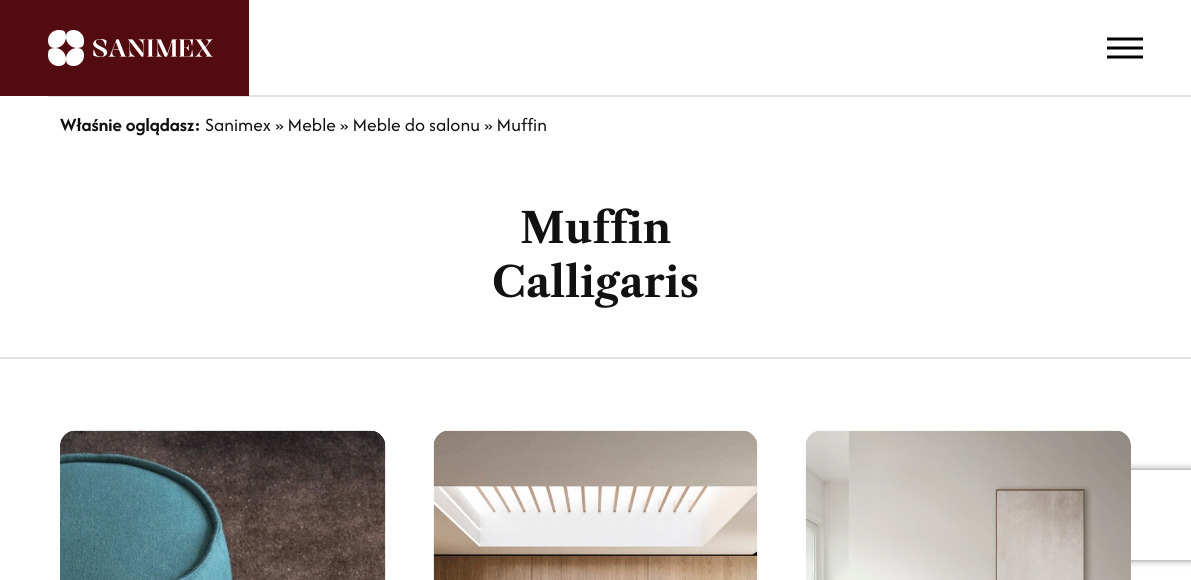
#include <cairo.h>
#include <math.h>
#include <stddef.h>


static void round_rect(cairo_t *cr, double x, double y, double w, double h, double r) {
    cairo_new_sub_path(cr);
    cairo_arc(cr, x + w - r, y + h - r, r, 0, M_PI / 2);
    cairo_arc(cr, x + r, y + h - r, r, M_PI / 2, M_PI);
    cairo_arc(cr, x + r, y + r, r, M_PI, 1.5 * M_PI);
    cairo_arc(cr, x + w - r, y + r, r, 1.5 * M_PI, 2 * M_PI);
    cairo_close_path(cr);
}

static void shadow(cairo_t *cr, double x, double y, double w, double h, double r, double blur, double alpha) {
    cairo_push_group_with_content(cr, CAIRO_CONTENT_ALPHA);
    cairo_set_operator(cr, CAIRO_OPERATOR_SOURCE);
    for (int i = 15; i >= -15 && fmin(w, h) + blur * i / 3 > 0; i -= 2) {
        double e = blur * i / 6;
        cairo_set_source_rgba(cr, 0, 0, 0, alpha * erfc((i - 1) / 8.5) / 2);
        round_rect(cr, x - e, y - e, w + 2 * e, h + 2 * e, fmax(0, fmin(r + e + blur * .6, fmin(w, h) / 2 + e)));
        cairo_fill(cr);
    }
    cairo_pattern_t *soft = cairo_pop_group(cr);
    cairo_mask(cr, soft);
    cairo_pattern_destroy(soft);
}

static void picture(cairo_t *cr, const char *path, double x, double y, double w, double h) {
    cairo_surface_t *image = cairo_image_surface_create_from_png(path);
    cairo_save(cr);
    cairo_set_source_surface(cr, image, x, y);
    cairo_rectangle(cr, x, y, w, h);
    cairo_fill(cr);
    cairo_restore(cr);
    cairo_surface_destroy(image);
}

int main(void) {
    cairo_surface_t *surface = cairo_image_surface_create(CAIRO_FORMAT_RGB24, 1191, 580);
    cairo_t *cr = cairo_create(surface);
    cairo_font_options_t *options = cairo_font_options_create();
    cairo_font_options_set_hint_metrics(options, CAIRO_HINT_METRICS_OFF);
    cairo_font_options_set_hint_style(options, CAIRO_HINT_STYLE_NONE);
    cairo_set_font_options(cr, options);
    cairo_set_miter_limit(cr, 4);
    cairo_pattern_t *gradient;
    cairo_set_source_rgb(cr, 1, 1, 1);
    cairo_paint(cr);
    gradient = cairo_pattern_create_linear(0, 48, 1191, 48);
    cairo_pattern_add_color_stop_rgba(gradient, 0, 0.322, 0.047, 0.059, 1);
    cairo_pattern_add_color_stop_rgba(gradient, 0.5, 0.322, 0.047, 0.059, 1);
    cairo_pattern_add_color_stop_rgba(gradient, 0.51, 1, 1, 1, 1);
    cairo_pattern_add_color_stop_rgba(gradient, 1, 1, 1, 1, 1);
    cairo_set_source(cr, gradient);
    cairo_pattern_destroy(gradient);
    cairo_rectangle(cr, 0, 0, 607, 96);
    cairo_fill(cr);
    cairo_set_source_rgb(cr, 1, 1, 1);
    cairo_rectangle(cr, 249, 0, 358, 95);
    cairo_fill(cr);
    cairo_set_source_rgb(cr, 0.882, 0.882, 0.882);
    cairo_rectangle(cr, 48, 95, 1143, 2);
    cairo_fill(cr);
    cairo_set_source_rgb(cr, 0.322, 0.047, 0.059);
    cairo_rectangle(cr, 48, 95, 201, 1);
    cairo_fill(cr);
    picture(cr, "img1.png", 48, 30, 165, 36);
    cairo_new_path(cr);
    cairo_move_to(cr, 1108.5, 39);
    cairo_line_to(cr, 1141.5, 39);
    cairo_move_to(cr, 1108.5, 48);
    cairo_line_to(cr, 1141.5, 48);
    cairo_move_to(cr, 1108.5, 57);
    cairo_line_to(cr, 1141.5, 57);
    cairo_set_source_rgb(cr, 0, 0, 0);
    cairo_set_line_width(cr, 3);
    cairo_set_line_cap(cr, CAIRO_LINE_CAP_SQUARE);
    cairo_stroke(cr);
    cairo_select_font_face(cr, "Afacad", CAIRO_FONT_SLANT_NORMAL, CAIRO_FONT_WEIGHT_BOLD);
    cairo_set_font_size(cr, 19.5);
    cairo_set_source_rgb(cr, 0.067, 0.067, 0.067);
    cairo_move_to(cr, 60, 131);
    cairo_show_text(cr, "Właśnie oglądasz:");
    cairo_select_font_face(cr, "Afacad", CAIRO_FONT_SLANT_NORMAL, CAIRO_FONT_WEIGHT_NORMAL);
    cairo_move_to(cr, 205, 131);
    cairo_show_text(cr, "Sanimex » Meble » Meble do salonu » Muffin");
    cairo_set_source_rgb(cr, 0.882, 0.882, 0.882);
    cairo_rectangle(cr, 0, 357, 1191, 2);
    cairo_fill(cr);
    cairo_select_font_face(cr, "Libre Caslon Text", CAIRO_FONT_SLANT_NORMAL, CAIRO_FONT_WEIGHT_BOLD);
    cairo_set_font_size(cr, 41.75);
    cairo_set_source_rgb(cr, 0.067, 0.067, 0.067);
    cairo_move_to(cr, 520, 243);
    cairo_show_text(cr, "Muffin");
    cairo_move_to(cr, 492, 297);
    cairo_show_text(cr, "Calligaris");
    picture(cr, "img2.png", 60, 430, 326, 150);
    picture(cr, "img3.png", 433, 430, 325, 150);
    cairo_save(cr);
    cairo_set_fill_rule(cr, CAIRO_FILL_RULE_EVEN_ODD);
    cairo_new_path(cr);
    cairo_move_to(cr, 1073, 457);
    cairo_line_to(cr, 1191, 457);
    cairo_line_to(cr, 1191, 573);
    cairo_line_to(cr, 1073, 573);
    cairo_close_path(cr);
    cairo_move_to(cr, 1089, 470);
    cairo_line_to(cr, 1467, 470);
    cairo_curve_to(cr, 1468.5, 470, 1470, 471.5, 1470, 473);
    cairo_line_to(cr, 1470, 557);
    cairo_curve_to(cr, 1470, 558.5, 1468.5, 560, 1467, 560);
    cairo_line_to(cr, 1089, 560);
    cairo_curve_to(cr, 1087.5, 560, 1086, 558.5, 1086, 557);
    cairo_line_to(cr, 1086, 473);
    cairo_curve_to(cr, 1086, 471.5, 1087.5, 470, 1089, 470);
    cairo_close_path(cr);
    cairo_clip(cr);
    cairo_set_source_rgb(cr, 0.502, 0.502, 0.502);
    shadow(cr, 1086, 470, 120, 90, 3, 4, 1);
    cairo_restore(cr);
    picture(cr, "img4.png", 805, 430, 326, 150);
    cairo_surface_write_to_png(surface, "page.png");
    cairo_font_options_destroy(options);
    cairo_destroy(cr);
    cairo_surface_destroy(surface);
    return 0;
}
